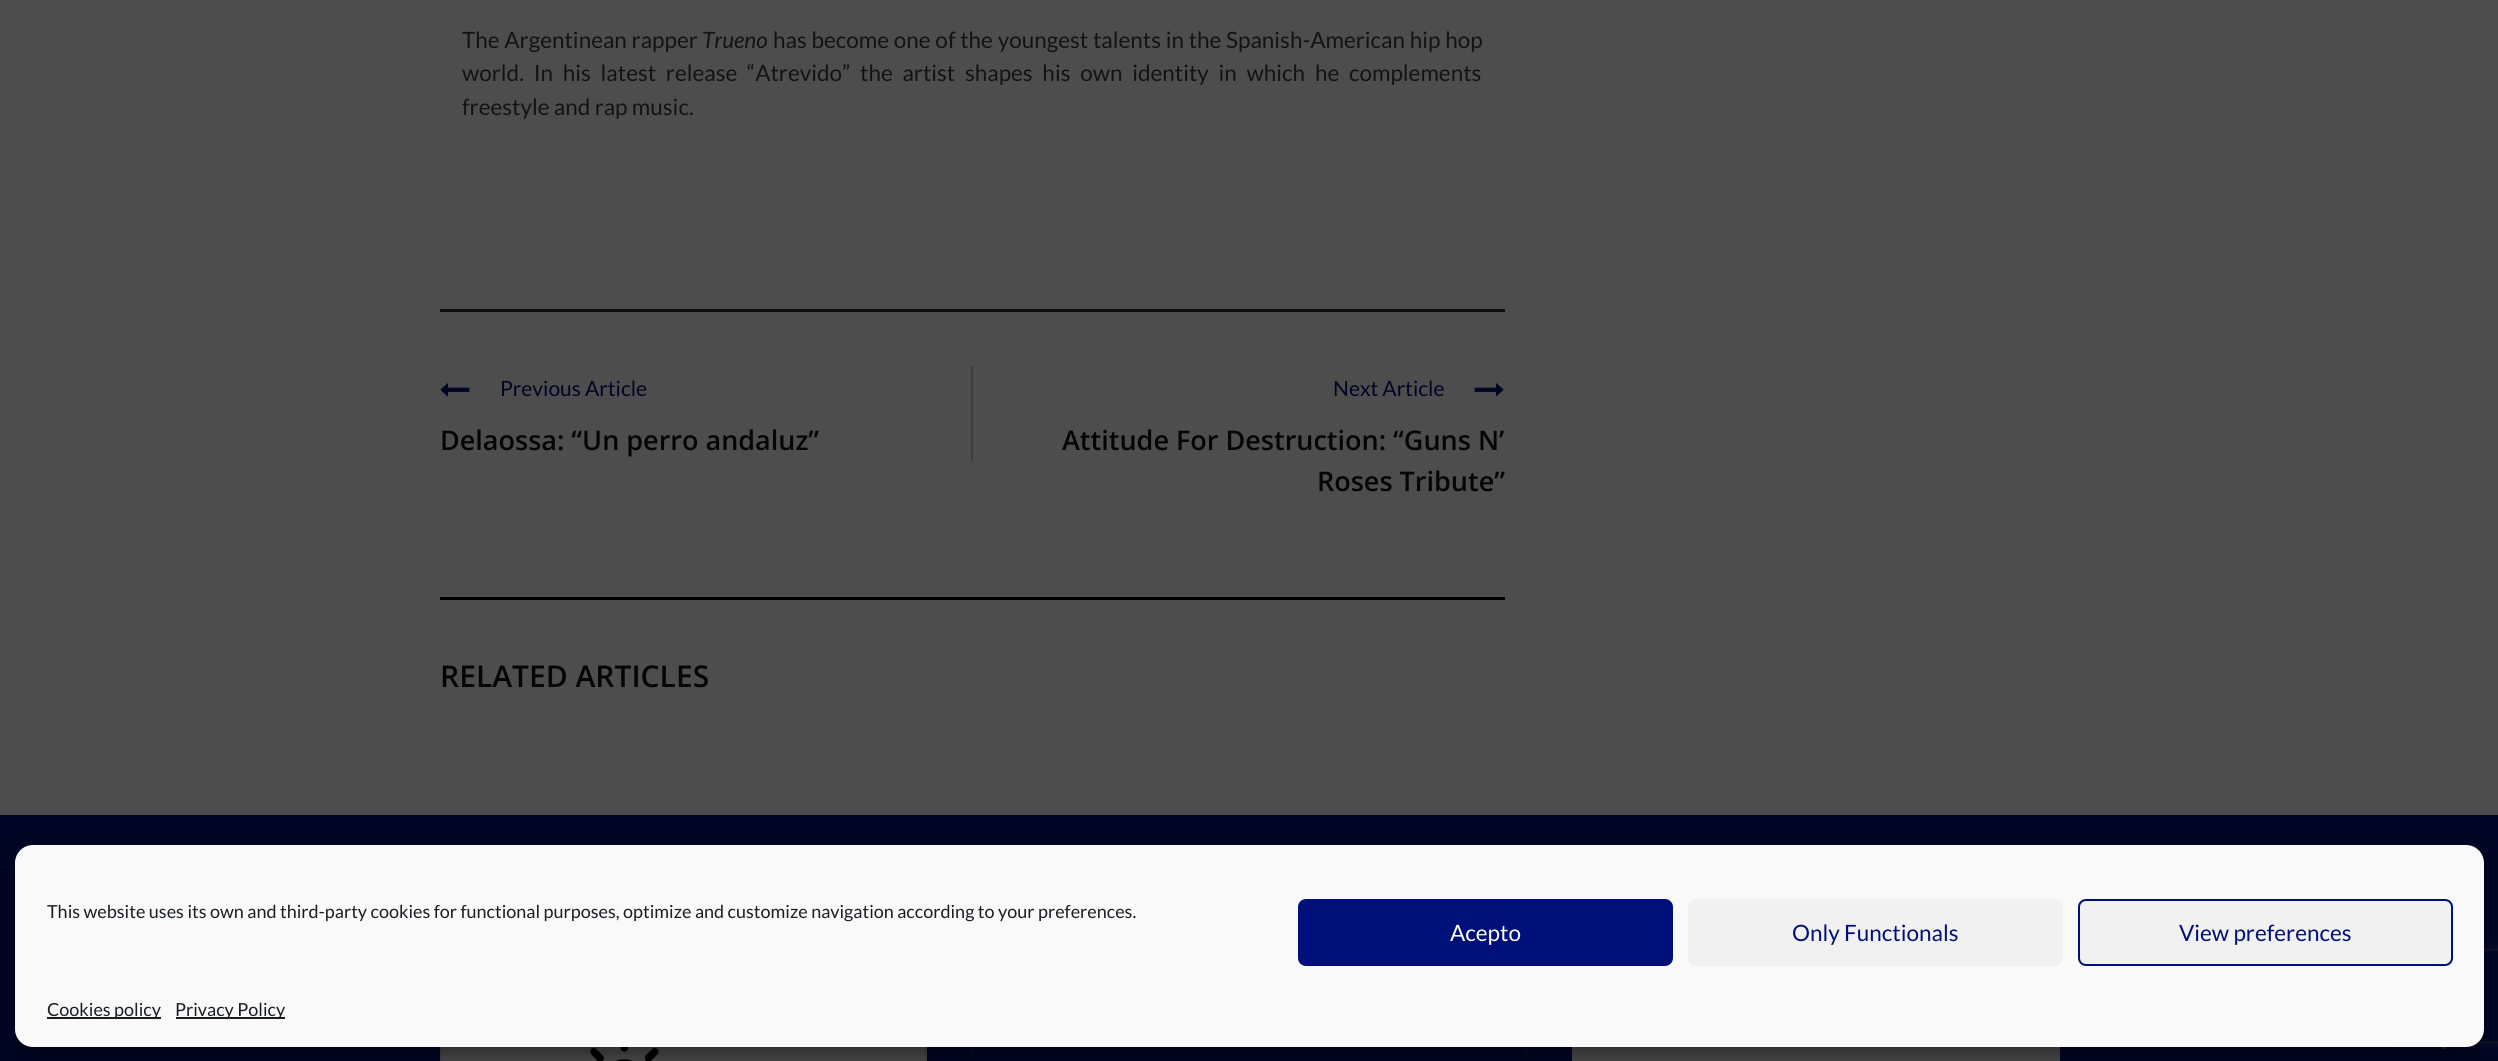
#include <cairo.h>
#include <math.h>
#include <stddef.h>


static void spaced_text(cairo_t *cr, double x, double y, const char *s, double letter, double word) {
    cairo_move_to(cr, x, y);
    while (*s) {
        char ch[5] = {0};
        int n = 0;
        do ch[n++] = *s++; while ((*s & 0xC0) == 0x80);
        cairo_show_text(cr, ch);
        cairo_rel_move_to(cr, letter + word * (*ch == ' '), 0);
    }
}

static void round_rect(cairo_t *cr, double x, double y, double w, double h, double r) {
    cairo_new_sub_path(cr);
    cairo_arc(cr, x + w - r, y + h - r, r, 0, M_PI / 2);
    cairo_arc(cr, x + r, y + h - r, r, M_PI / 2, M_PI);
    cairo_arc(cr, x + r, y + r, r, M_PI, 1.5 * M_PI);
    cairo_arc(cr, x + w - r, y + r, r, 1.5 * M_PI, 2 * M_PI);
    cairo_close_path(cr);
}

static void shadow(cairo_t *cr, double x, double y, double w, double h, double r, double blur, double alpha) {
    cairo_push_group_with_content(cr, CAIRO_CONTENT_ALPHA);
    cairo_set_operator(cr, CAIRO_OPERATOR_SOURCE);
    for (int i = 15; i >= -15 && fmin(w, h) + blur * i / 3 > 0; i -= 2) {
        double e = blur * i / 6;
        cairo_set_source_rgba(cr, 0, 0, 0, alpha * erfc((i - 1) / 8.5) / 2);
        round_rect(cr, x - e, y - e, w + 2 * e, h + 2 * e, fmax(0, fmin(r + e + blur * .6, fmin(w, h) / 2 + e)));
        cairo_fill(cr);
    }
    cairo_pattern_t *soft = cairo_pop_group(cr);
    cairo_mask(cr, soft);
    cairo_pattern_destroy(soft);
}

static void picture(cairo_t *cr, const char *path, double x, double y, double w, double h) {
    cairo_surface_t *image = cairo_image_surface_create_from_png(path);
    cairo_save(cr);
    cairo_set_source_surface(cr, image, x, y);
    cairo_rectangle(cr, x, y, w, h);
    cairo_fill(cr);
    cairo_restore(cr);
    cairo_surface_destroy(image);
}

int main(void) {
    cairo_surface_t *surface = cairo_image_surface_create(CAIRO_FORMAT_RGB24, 2498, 1061);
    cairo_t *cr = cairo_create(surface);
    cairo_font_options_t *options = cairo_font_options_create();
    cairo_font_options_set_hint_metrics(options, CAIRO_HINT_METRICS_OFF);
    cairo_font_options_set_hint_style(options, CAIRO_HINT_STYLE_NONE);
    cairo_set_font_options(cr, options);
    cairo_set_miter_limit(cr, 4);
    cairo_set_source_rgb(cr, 0.302, 0.302, 0.302);
    cairo_paint(cr);
    cairo_select_font_face(cr, "Lato", CAIRO_FONT_SLANT_NORMAL, CAIRO_FONT_WEIGHT_NORMAL);
    cairo_set_font_size(cr, 22.5);
    cairo_set_source_rgb(cr, 0.078, 0.078, 0.078);
    spaced_text(cr, 462, 48, "The Argentinean rapper", 0, 0.4);
    cairo_select_font_face(cr, "Lato", CAIRO_FONT_SLANT_ITALIC, CAIRO_FONT_WEIGHT_NORMAL);
    cairo_move_to(cr, 702, 48);
    cairo_show_text(cr, "Trueno");
    cairo_select_font_face(cr, "Lato", CAIRO_FONT_SLANT_NORMAL, CAIRO_FONT_WEIGHT_NORMAL);
    spaced_text(cr, 773, 48, "has become one of the youngest talents in the Spanish-American hip hop", 0, 0.4);
    spaced_text(cr, 462, 81, "world. In his latest release “Atrevido” the artist shapes his own identity in which he complements", 0, 5.4);
    cairo_move_to(cr, 462, 115);
    cairo_show_text(cr, "freestyle and rap music.");
    cairo_set_source_rgb(cr, 0.059, 0.059, 0.059);
    cairo_rectangle(cr, 440, 309, 1065, 3);
    cairo_fill(cr);
    cairo_set_source_rgb(cr, 0.239, 0.239, 0.239);
    cairo_rectangle(cr, 971, 366, 2, 95);
    cairo_fill(cr);
    picture(cr, "img1.png", 440, 383, 30, 14);
    cairo_set_font_size(cr, 21);
    cairo_set_source_rgb(cr, 0, 0.02, 0.145);
    cairo_move_to(cr, 500, 396);
    cairo_show_text(cr, "Previous Article");
    cairo_select_font_face(cr, "Open Sans SemiBold", CAIRO_FONT_SLANT_NORMAL, CAIRO_FONT_WEIGHT_NORMAL);
    cairo_set_font_size(cr, 27);
    cairo_set_source_rgb(cr, 0.02, 0.02, 0.02);
    cairo_move_to(cr, 440, 450);
    cairo_show_text(cr, "Delaossa: “Un perro andaluz”");
    cairo_select_font_face(cr, "Lato", CAIRO_FONT_SLANT_NORMAL, CAIRO_FONT_WEIGHT_NORMAL);
    cairo_set_font_size(cr, 21);
    cairo_set_source_rgb(cr, 0, 0.02, 0.145);
    cairo_move_to(cr, 1333, 396);
    cairo_show_text(cr, "Next Article");
    picture(cr, "img2.png", 1474, 383, 30, 14);
    cairo_select_font_face(cr, "Open Sans SemiBold", CAIRO_FONT_SLANT_NORMAL, CAIRO_FONT_WEIGHT_NORMAL);
    cairo_set_font_size(cr, 27);
    cairo_set_source_rgb(cr, 0.02, 0.02, 0.02);
    cairo_move_to(cr, 1062, 450);
    cairo_show_text(cr, "Attitude For Destruction: “Guns N’");
    cairo_move_to(cr, 1317, 491);
    cairo_show_text(cr, "Roses Tribute”");
    cairo_set_source_rgb(cr, 0, 0, 0);
    cairo_rectangle(cr, 440, 597, 1065, 3);
    cairo_fill(cr);
    cairo_set_font_size(cr, 30);
    cairo_set_source_rgb(cr, 0.02, 0.02, 0.02);
    cairo_move_to(cr, 440, 687);
    cairo_show_text(cr, "RELATED ARTICLES");
    cairo_set_source_rgb(cr, 0, 0.02, 0.145);
    cairo_rectangle(cr, 0, 815, 2498, 246);
    cairo_fill(cr);
    cairo_set_source_rgb(cr, 0.302, 0.302, 0.302);
    cairo_rectangle(cr, 442, 1047, 483, 14);
    cairo_fill(cr);
    cairo_rectangle(cr, 441, 972, 485, 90);
    cairo_set_source_rgb(cr, 0.278, 0.278, 0.278);
    cairo_stroke(cr);
    picture(cr, "img3.png", 590, 1047, 69, 14);
    cairo_new_path(cr);
    cairo_move_to(cr, 1526, 874.5);
    cairo_line_to(cr, 1526, 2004);
    cairo_set_source_rgb(cr, 0.059, 0.059, 0.059);
    cairo_set_line_width(cr, 1.5);
    cairo_set_dash(cr, (double[]){4.5, 3}, 2, 0);
    cairo_stroke(cr);
    cairo_new_path(cr);
    cairo_move_to(cr, 973, 874.5);
    cairo_line_to(cr, 973, 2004);
    cairo_stroke(cr);
    cairo_set_source_rgb(cr, 0.302, 0.302, 0.302);
    cairo_rectangle(cr, 1572, 1047, 488, 14);
    cairo_fill(cr);
    cairo_save(cr);
    cairo_set_fill_rule(cr, CAIRO_FILL_RULE_EVEN_ODD);
    cairo_new_path(cr);
    cairo_move_to(cr, 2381, 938);
    cairo_line_to(cr, 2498, 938);
    cairo_line_to(cr, 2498, 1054);
    cairo_line_to(cr, 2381, 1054);
    cairo_close_path(cr);
    cairo_move_to(cr, 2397, 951);
    cairo_line_to(cr, 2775, 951);
    cairo_curve_to(cr, 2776.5, 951, 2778, 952.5, 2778, 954);
    cairo_line_to(cr, 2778, 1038);
    cairo_curve_to(cr, 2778, 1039.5, 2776.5, 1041, 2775, 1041);
    cairo_line_to(cr, 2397, 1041);
    cairo_curve_to(cr, 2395.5, 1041, 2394, 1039.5, 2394, 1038);
    cairo_line_to(cr, 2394, 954);
    cairo_curve_to(cr, 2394, 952.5, 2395.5, 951, 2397, 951);
    cairo_close_path(cr);
    cairo_clip(cr);
    cairo_set_source_rgb(cr, 0.149, 0.149, 0.149);
    shadow(cr, 2394, 951, 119, 90, 3, 4, 1);
    cairo_restore(cr);
    picture(cr, "img4.png", 2442, 1047, 4, 2);
    cairo_set_source_rgb(cr, 0, 0, 0);
    shadow(cr, 15, 854, 2469, 202, 18, 4.5, 0.23);
    shadow(cr, 15, 860, 2469, 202, 18, 15, 0.19);
    cairo_set_source_rgb(cr, 0.976, 0.976, 0.976);
    round_rect(cr, 16, 846, 2467, 200, 17);
    cairo_fill_preserve(cr);
    cairo_set_line_width(cr, 2);
    cairo_set_dash(cr, NULL, 0, 0);
    cairo_stroke(cr);
    cairo_select_font_face(cr, "Lato", CAIRO_FONT_SLANT_NORMAL, CAIRO_FONT_WEIGHT_NORMAL);
    cairo_set_font_size(cr, 18);
    cairo_set_source_rgb(cr, 0.098, 0.118, 0.137);
    cairo_move_to(cr, 47, 918);
    cairo_show_text(cr, "This website uses its own and third-party cookies for functional purposes, optimize and customize navigation according to your preferences.");
    cairo_set_source_rgb(cr, 0, 0.063, 0.478);
    round_rect(cr, 1299, 900, 373, 65, 7);
    cairo_fill_preserve(cr);
    cairo_stroke(cr);
    cairo_set_font_size(cr, 22.5);
    cairo_set_source_rgb(cr, 1, 1, 1);
    cairo_move_to(cr, 1450, 941);
    cairo_show_text(cr, "Acepto");
    cairo_set_source_rgb(cr, 0.945, 0.945, 0.945);
    round_rect(cr, 1688, 899, 375, 67, 8);
    cairo_fill(cr);
    cairo_set_source_rgb(cr, 0, 0.063, 0.478);
    cairo_move_to(cr, 1792, 941);
    cairo_show_text(cr, "Only Functionals");
    cairo_set_source_rgb(cr, 0.945, 0.945, 0.945);
    round_rect(cr, 2079, 900, 373, 65, 7);
    cairo_fill_preserve(cr);
    cairo_set_source_rgb(cr, 0, 0.063, 0.478);
    cairo_stroke(cr);
    cairo_move_to(cr, 2179, 941);
    cairo_show_text(cr, "View preferences");
    cairo_set_source_rgb(cr, 0.098, 0.118, 0.137);
    cairo_rectangle(cr, 47, 1017, 114, 2);
    cairo_fill(cr);
    cairo_set_font_size(cr, 18);
    cairo_move_to(cr, 47, 1016);
    cairo_show_text(cr, "Cookies policy");
    cairo_rectangle(cr, 176, 1017, 109, 2);
    cairo_fill(cr);
    cairo_move_to(cr, 175, 1016);
    cairo_show_text(cr, "Privacy Policy");
    cairo_surface_write_to_png(surface, "page.png");
    cairo_font_options_destroy(options);
    cairo_destroy(cr);
    cairo_surface_destroy(surface);
    return 0;
}
